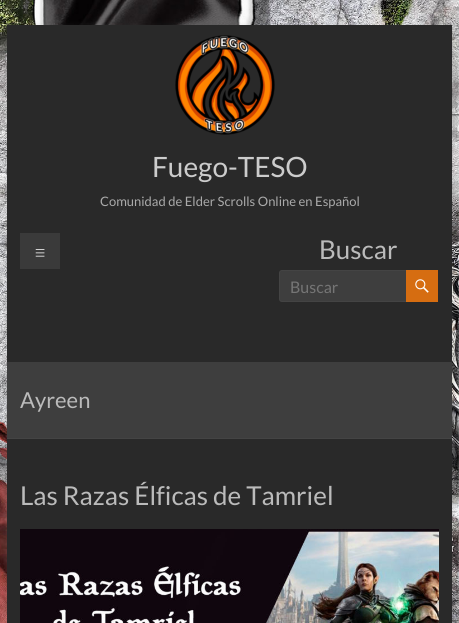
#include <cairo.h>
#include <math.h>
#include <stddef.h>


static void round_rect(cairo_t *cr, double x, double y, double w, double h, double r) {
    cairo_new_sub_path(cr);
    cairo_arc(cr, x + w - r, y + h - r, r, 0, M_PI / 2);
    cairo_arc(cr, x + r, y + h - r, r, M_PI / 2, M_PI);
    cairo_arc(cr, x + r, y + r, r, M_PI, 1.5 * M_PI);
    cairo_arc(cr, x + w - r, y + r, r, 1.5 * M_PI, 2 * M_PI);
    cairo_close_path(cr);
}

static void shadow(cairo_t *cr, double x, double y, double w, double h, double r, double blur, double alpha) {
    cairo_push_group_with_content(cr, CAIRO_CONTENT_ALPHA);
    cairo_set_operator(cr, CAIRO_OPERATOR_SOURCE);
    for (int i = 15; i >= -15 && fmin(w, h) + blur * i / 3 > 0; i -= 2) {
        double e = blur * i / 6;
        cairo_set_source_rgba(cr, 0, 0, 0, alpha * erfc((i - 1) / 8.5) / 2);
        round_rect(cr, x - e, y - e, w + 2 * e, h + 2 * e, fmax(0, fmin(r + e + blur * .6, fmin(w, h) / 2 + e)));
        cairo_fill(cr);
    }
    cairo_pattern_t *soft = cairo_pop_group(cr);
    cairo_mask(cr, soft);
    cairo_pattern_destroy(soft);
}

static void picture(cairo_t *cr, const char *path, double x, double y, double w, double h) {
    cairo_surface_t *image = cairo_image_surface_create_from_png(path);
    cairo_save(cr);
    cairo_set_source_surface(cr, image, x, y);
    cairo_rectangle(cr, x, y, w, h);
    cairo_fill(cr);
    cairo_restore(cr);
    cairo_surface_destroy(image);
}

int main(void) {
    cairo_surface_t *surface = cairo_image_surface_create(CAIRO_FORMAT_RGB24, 459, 623);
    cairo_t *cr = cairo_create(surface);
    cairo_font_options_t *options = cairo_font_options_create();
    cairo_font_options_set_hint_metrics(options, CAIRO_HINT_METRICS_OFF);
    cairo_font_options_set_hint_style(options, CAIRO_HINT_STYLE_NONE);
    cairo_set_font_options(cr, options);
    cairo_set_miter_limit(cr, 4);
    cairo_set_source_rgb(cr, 1, 1, 1);
    cairo_paint(cr);
    picture(cr, "img1.png", 0, 0, 459, 623);
    cairo_set_source_rgb(cr, 0.392, 0.392, 0.392);
    shadow(cr, 7, 27, 445, 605, 0, 3, 0.3);
    cairo_set_source_rgb(cr, 0.161, 0.161, 0.161);
    cairo_rectangle(cr, 7, 25, 445, 598);
    cairo_fill(cr);
    picture(cr, "img2.png", 175, 35, 100, 100);
    cairo_select_font_face(cr, "Lato", CAIRO_FONT_SLANT_NORMAL, CAIRO_FONT_WEIGHT_NORMAL);
    cairo_set_font_size(cr, 28);
    cairo_set_source_rgb(cr, 0.8, 0.8, 0.8);
    cairo_move_to(cr, 152, 177);
    cairo_show_text(cr, "Fuego-TESO");
    cairo_set_font_size(cr, 13);
    cairo_set_source_rgb(cr, 0.667, 0.667, 0.667);
    cairo_move_to(cr, 100, 206);
    cairo_show_text(cr, "Comunidad de Elder Scrolls Online en Español");
    cairo_set_source_rgb(cr, 0.227, 0.227, 0.227);
    cairo_rectangle(cr, 20, 233, 40, 36);
    cairo_fill(cr);
    cairo_select_font_face(cr, "Lato Light", CAIRO_FONT_SLANT_NORMAL, CAIRO_FONT_WEIGHT_NORMAL);
    cairo_set_font_size(cr, 21);
    cairo_set_source_rgb(cr, 1, 1, 1);
    cairo_move_to(cr, 34, 260);
    cairo_show_text(cr, "≡");
    cairo_select_font_face(cr, "Lato", CAIRO_FONT_SLANT_NORMAL, CAIRO_FONT_WEIGHT_NORMAL);
    cairo_set_font_size(cr, 26);
    cairo_set_source_rgb(cr, 0.733, 0.733, 0.733);
    cairo_move_to(cr, 319, 259);
    cairo_show_text(cr, "Buscar");
    cairo_set_source_rgb(cr, 0.243, 0.243, 0.243);
    round_rect(cr, 279.5, 270.5, 129, 31, 2.5);
    cairo_fill_preserve(cr);
    cairo_set_source_rgb(cr, 0.267, 0.267, 0.267);
    cairo_set_line_width(cr, 1);
    cairo_stroke(cr);
    cairo_set_font_size(cr, 16);
    cairo_set_source_rgb(cr, 0.459, 0.459, 0.459);
    cairo_move_to(cr, 290, 293);
    cairo_show_text(cr, "Buscar");
    cairo_set_source_rgb(cr, 0.839, 0.427, 0.067);
    cairo_rectangle(cr, 406, 270, 32, 32);
    cairo_fill(cr);
    picture(cr, "img3.png", 415, 279, 14, 14);
    cairo_set_source_rgb(cr, 0.243, 0.243, 0.243);
    cairo_rectangle(cr, 7, 362, 445, 76);
    cairo_fill(cr);
    cairo_set_source_rgb(cr, 0.267, 0.267, 0.267);
    cairo_rectangle(cr, 7, 438, 445, 1);
    cairo_fill(cr);
    cairo_set_font_size(cr, 22);
    cairo_set_source_rgb(cr, 0.733, 0.733, 0.733);
    cairo_move_to(cr, 20, 408);
    cairo_show_text(cr, "Ayreen");
    cairo_set_font_size(cr, 26);
    cairo_move_to(cr, 20, 505);
    cairo_show_text(cr, "Las Razas Élficas de Tamriel");
    picture(cr, "img4.png", 20, 529, 419, 94);
    cairo_surface_write_to_png(surface, "page.png");
    cairo_font_options_destroy(options);
    cairo_destroy(cr);
    cairo_surface_destroy(surface);
    return 0;
}
